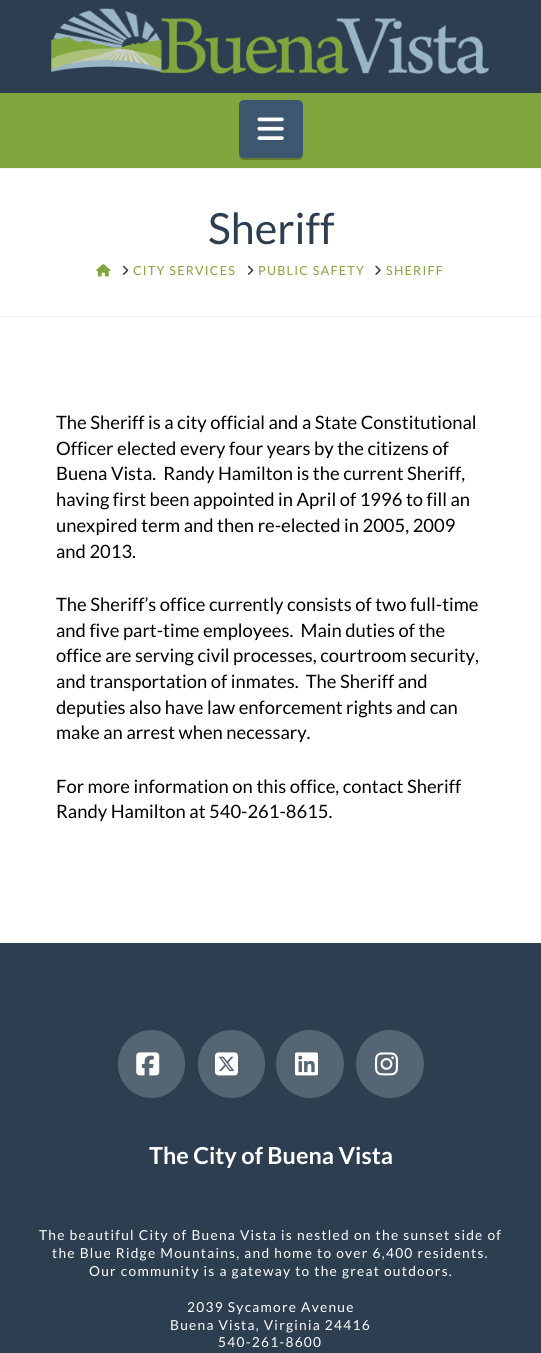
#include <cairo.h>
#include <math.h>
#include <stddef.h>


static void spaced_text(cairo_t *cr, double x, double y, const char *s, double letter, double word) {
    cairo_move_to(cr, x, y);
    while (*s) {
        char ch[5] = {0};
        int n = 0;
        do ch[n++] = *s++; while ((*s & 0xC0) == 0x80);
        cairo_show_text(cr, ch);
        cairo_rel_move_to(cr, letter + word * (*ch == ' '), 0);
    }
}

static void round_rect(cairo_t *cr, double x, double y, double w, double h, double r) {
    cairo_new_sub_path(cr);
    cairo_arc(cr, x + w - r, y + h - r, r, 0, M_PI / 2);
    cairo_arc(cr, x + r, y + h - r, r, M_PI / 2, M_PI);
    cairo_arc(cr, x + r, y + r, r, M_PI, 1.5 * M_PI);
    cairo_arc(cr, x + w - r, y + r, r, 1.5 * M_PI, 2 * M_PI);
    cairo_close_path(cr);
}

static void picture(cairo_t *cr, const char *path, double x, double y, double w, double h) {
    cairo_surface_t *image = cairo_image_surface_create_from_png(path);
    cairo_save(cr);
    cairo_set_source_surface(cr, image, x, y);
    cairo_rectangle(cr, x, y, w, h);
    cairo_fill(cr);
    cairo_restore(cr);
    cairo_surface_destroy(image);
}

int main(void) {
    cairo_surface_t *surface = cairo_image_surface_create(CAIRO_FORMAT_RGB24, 541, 1353);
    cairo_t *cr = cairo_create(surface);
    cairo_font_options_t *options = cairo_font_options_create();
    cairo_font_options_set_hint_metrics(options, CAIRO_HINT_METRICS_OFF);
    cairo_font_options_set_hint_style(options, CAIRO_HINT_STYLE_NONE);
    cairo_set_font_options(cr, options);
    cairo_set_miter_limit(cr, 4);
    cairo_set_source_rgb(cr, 1, 1, 1);
    cairo_paint(cr);
    cairo_set_source_rgb(cr, 0.173, 0.243, 0.314);
    cairo_rectangle(cr, 0, 0, 541, 93);
    cairo_fill(cr);
    picture(cr, "img1.png", 51, 8, 438, 66);
    cairo_set_source_rgb(cr, 0.51, 0.647, 0.239);
    cairo_rectangle(cr, 0, 93, 541, 75);
    cairo_fill(cr);
    cairo_set_source_rgb(cr, 0.384, 0.486, 0.18);
    cairo_new_path(cr);
    cairo_move_to(cr, 239, 154);
    cairo_line_to(cr, 239, 155);
    cairo_curve_to(cr, 239, 158, 241, 160, 244, 160);
    cairo_line_to(cr, 298, 160);
    cairo_curve_to(cr, 301, 160, 303, 158, 303, 155);
    cairo_line_to(cr, 303, 108);
    cairo_line_to(cr, 302, 106);
    cairo_line_to(cr, 302, 152);
    cairo_curve_to(cr, 302, 155, 300, 158, 298, 158);
    cairo_line_to(cr, 244, 158);
    cairo_curve_to(cr, 242, 158, 240, 156, 239, 154);
    cairo_close_path(cr);
    cairo_fill(cr);
    cairo_set_source_rgb(cr, 0.243, 0.341, 0.443);
    round_rect(cr, 239, 100, 64, 58, 5);
    cairo_fill(cr);
    picture(cr, "img2.png", 257, 117, 27, 23);
    cairo_set_source_rgb(cr, 0.949, 0.949, 0.949);
    cairo_rectangle(cr, 0, 168, 541, 1);
    cairo_fill(cr);
    cairo_rectangle(cr, 0, 316, 541, 1);
    cairo_fill(cr);
    cairo_select_font_face(cr, "Lato", CAIRO_FONT_SLANT_NORMAL, CAIRO_FONT_WEIGHT_NORMAL);
    cairo_set_font_size(cr, 43);
    cairo_set_source_rgb(cr, 0.173, 0.243, 0.314);
    cairo_move_to(cr, 208, 244);
    cairo_show_text(cr, "Sheriff");
    picture(cr, "img3.png", 96, 264, 15, 13);
    picture(cr, "img4.png", 122, 265, 7, 10);
    cairo_set_font_size(cr, 12.5);
    cairo_set_source_rgb(cr, 0.51, 0.647, 0.239);
    spaced_text(cr, 133, 275, "CITY SERVICES", 1.25, 0);
    picture(cr, "img4.png", 247, 265, 7, 10);
    spaced_text(cr, 258, 275, "PUBLIC SAFETY", 1.25, 0);
    picture(cr, "img5.png", 375, 265, 6, 10);
    spaced_text(cr, 386, 275, "SHERIFF", 1.25, 0);
    cairo_set_font_size(cr, 18.4);
    cairo_set_source_rgb(cr, 0, 0, 0);
    cairo_move_to(cr, 56, 429);
    cairo_show_text(cr, "The Sheriff is a city official and a State Constitutional");
    cairo_move_to(cr, 56, 455);
    cairo_show_text(cr, "Officer elected every four years by the citizens of");
    cairo_move_to(cr, 56, 480);
    cairo_show_text(cr, "Buena Vista.  Randy Hamilton is the current Sheriff,");
    cairo_move_to(cr, 56, 506);
    cairo_show_text(cr, "having first been appointed in April of 1996 to fill an");
    cairo_move_to(cr, 56, 532);
    cairo_show_text(cr, "unexpired term and then re-elected in 2005, 2009");
    cairo_move_to(cr, 56, 558);
    cairo_show_text(cr, "and 2013.");
    cairo_move_to(cr, 56, 611);
    cairo_show_text(cr, "The Sheriff’s office currently consists of two full-time");
    cairo_move_to(cr, 56, 637);
    cairo_show_text(cr, "and five part-time employees.  Main duties of the");
    cairo_move_to(cr, 56, 662);
    cairo_show_text(cr, "office are serving civil processes, courtroom security,");
    cairo_move_to(cr, 56, 688);
    cairo_show_text(cr, "and transportation of inmates.  The Sheriff and");
    cairo_move_to(cr, 56, 714);
    cairo_show_text(cr, "deputies also have law enforcement rights and can");
    cairo_move_to(cr, 56, 739);
    cairo_show_text(cr, "make an arrest when necessary.");
    cairo_move_to(cr, 56, 793);
    cairo_show_text(cr, "For more information on this office, contact Sheriff");
    cairo_move_to(cr, 56, 818);
    cairo_show_text(cr, "Randy Hamilton at 540-261-8615.");
    cairo_set_source_rgb(cr, 0.173, 0.243, 0.314);
    cairo_rectangle(cr, 0, 943, 541, 410);
    cairo_fill(cr);
    cairo_set_source_rgb(cr, 0.337, 0.396, 0.451);
    round_rect(cr, 118, 1030, 67, 68, 33.5);
    cairo_fill(cr);
    picture(cr, "img6.png", 136, 1052, 24, 24);
    round_rect(cr, 198, 1030, 67, 68, 33.5);
    cairo_fill(cr);
    picture(cr, "img7.png", 215, 1052, 23, 24);
    cairo_arc(cr, 310, 1064, 34, 0, 2 * M_PI);
    cairo_fill(cr);
    picture(cr, "img8.png", 295, 1052, 23, 24);
    cairo_arc(cr, 390, 1064, 34, 0, 2 * M_PI);
    cairo_fill(cr);
    picture(cr, "img9.png", 375, 1052, 23, 24);
    cairo_select_font_face(cr, "Lato", CAIRO_FONT_SLANT_NORMAL, CAIRO_FONT_WEIGHT_BOLD);
    cairo_set_font_size(cr, 23.4);
    cairo_set_source_rgb(cr, 1, 1, 1);
    cairo_move_to(cr, 149, 1164);
    cairo_show_text(cr, "The City of Buena Vista");
    cairo_select_font_face(cr, "Lato", CAIRO_FONT_SLANT_NORMAL, CAIRO_FONT_WEIGHT_NORMAL);
    cairo_set_font_size(cr, 13.75);
    spaced_text(cr, 39, 1240, "The beautiful City of Buena Vista is nestled on the sunset side of", 1.25, 0);
    spaced_text(cr, 52, 1258, "the Blue Ridge Mountains, and home to over 6,400 residents.", 1.25, 0);
    spaced_text(cr, 89, 1276, "Our community is a gateway to the great outdoors.", 1.25, 0);
    spaced_text(cr, 187, 1312, "2039 Sycamore Avenue", 1.25, 0);
    spaced_text(cr, 170, 1330, "Buena Vista, Virginia 24416", 1.25, 0);
    spaced_text(cr, 218, 1347, "540-261-8600", 1.25, 0);
    cairo_surface_write_to_png(surface, "page.png");
    cairo_font_options_destroy(options);
    cairo_destroy(cr);
    cairo_surface_destroy(surface);
    return 0;
}
